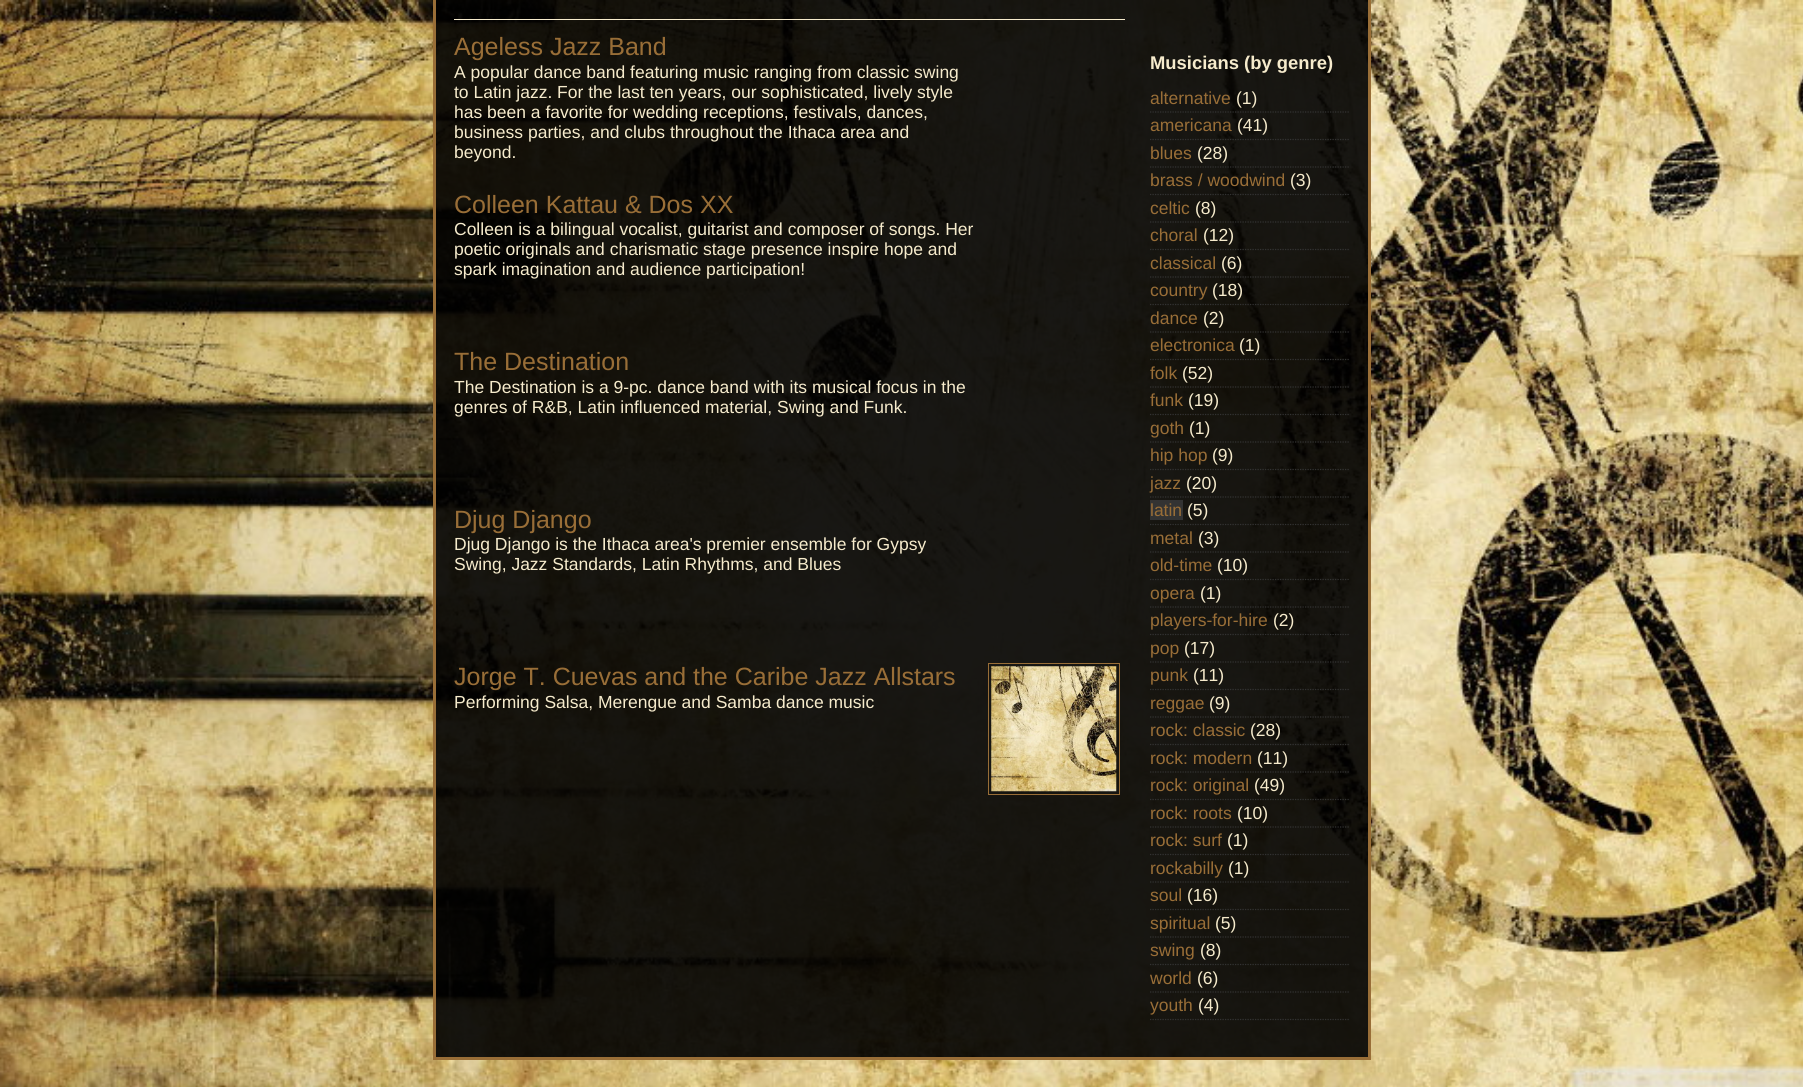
#include <cairo.h>
#include <math.h>
#include <stddef.h>


static void picture(cairo_t *cr, const char *path, double x, double y, double w, double h) {
    cairo_surface_t *image = cairo_image_surface_create_from_png(path);
    cairo_save(cr);
    cairo_set_source_surface(cr, image, x, y);
    cairo_rectangle(cr, x, y, w, h);
    cairo_fill(cr);
    cairo_restore(cr);
    cairo_surface_destroy(image);
}

int main(void) {
    cairo_surface_t *surface = cairo_image_surface_create(CAIRO_FORMAT_RGB24, 1803, 1087);
    cairo_t *cr = cairo_create(surface);
    cairo_font_options_t *options = cairo_font_options_create();
    cairo_font_options_set_hint_metrics(options, CAIRO_HINT_METRICS_OFF);
    cairo_font_options_set_hint_style(options, CAIRO_HINT_STYLE_NONE);
    cairo_set_font_options(cr, options);
    cairo_set_miter_limit(cr, 4);
    cairo_set_source_rgb(cr, 1, 1, 1);
    cairo_paint(cr);
    picture(cr, "img1.png", 0, 0, 1803, 1087);
    cairo_set_source_rgba(cr, 0, 0, 0, 0.9);
    cairo_rectangle(cr, 434.5, -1.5, 935, 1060);
    cairo_fill_preserve(cr);
    cairo_set_source_rgb(cr, 0.6, 0.431, 0.216);
    cairo_set_line_width(cr, 3);
    cairo_stroke(cr);
    cairo_set_source_rgb(cr, 0.961, 0.918, 0.8);
    cairo_rectangle(cr, 454, 19, 671, 1);
    cairo_fill(cr);
    cairo_select_font_face(cr, "Liberation Sans", CAIRO_FONT_SLANT_NORMAL, CAIRO_FONT_WEIGHT_NORMAL);
    cairo_set_font_size(cr, 25);
    cairo_set_source_rgb(cr, 0.6, 0.431, 0.216);
    cairo_move_to(cr, 454, 55);
    cairo_show_text(cr, "Ageless Jazz Band");
    cairo_set_font_size(cr, 17.5);
    cairo_set_source_rgb(cr, 0.961, 0.918, 0.8);
    cairo_move_to(cr, 454, 78);
    cairo_show_text(cr, "A popular dance band featuring music ranging from classic swing");
    cairo_move_to(cr, 454, 98);
    cairo_show_text(cr, "to Latin jazz. For the last ten years, our sophisticated, lively style");
    cairo_move_to(cr, 454, 118);
    cairo_show_text(cr, "has been a favorite for wedding receptions, festivals, dances,");
    cairo_move_to(cr, 454, 138);
    cairo_show_text(cr, "business parties, and clubs throughout the Ithaca area and");
    cairo_move_to(cr, 454, 158);
    cairo_show_text(cr, "beyond.");
    cairo_set_font_size(cr, 25);
    cairo_set_source_rgb(cr, 0.6, 0.431, 0.216);
    cairo_move_to(cr, 454, 213);
    cairo_show_text(cr, "Colleen Kattau & Dos XX");
    cairo_set_font_size(cr, 17.5);
    cairo_set_source_rgb(cr, 0.961, 0.918, 0.8);
    cairo_move_to(cr, 454, 235);
    cairo_show_text(cr, "Colleen is a bilingual vocalist, guitarist and composer of songs. Her");
    cairo_move_to(cr, 454, 255);
    cairo_show_text(cr, "poetic originals and charismatic stage presence inspire hope and");
    cairo_move_to(cr, 454, 275);
    cairo_show_text(cr, "spark imagination and audience participation!");
    cairo_set_font_size(cr, 25);
    cairo_set_source_rgb(cr, 0.6, 0.431, 0.216);
    cairo_move_to(cr, 454, 370);
    cairo_show_text(cr, "The Destination");
    cairo_set_font_size(cr, 17.5);
    cairo_set_source_rgb(cr, 0.961, 0.918, 0.8);
    cairo_move_to(cr, 454, 393);
    cairo_show_text(cr, "The Destination is a 9-pc. dance band with its musical focus in the");
    cairo_move_to(cr, 454, 413);
    cairo_show_text(cr, "genres of R&B, Latin influenced material, Swing and Funk.");
    cairo_set_font_size(cr, 25);
    cairo_set_source_rgb(cr, 0.6, 0.431, 0.216);
    cairo_move_to(cr, 454, 528);
    cairo_show_text(cr, "Djug Django");
    cairo_set_font_size(cr, 17.5);
    cairo_set_source_rgb(cr, 0.961, 0.918, 0.8);
    cairo_move_to(cr, 454, 550);
    cairo_show_text(cr, "Djug Django is the Ithaca area's premier ensemble for Gypsy");
    cairo_move_to(cr, 454, 570);
    cairo_show_text(cr, "Swing, Jazz Standards, Latin Rhythms, and Blues");
    cairo_set_font_size(cr, 25);
    cairo_set_source_rgb(cr, 0.6, 0.431, 0.216);
    cairo_move_to(cr, 454, 685);
    cairo_show_text(cr, "Jorge T. Cuevas and the Caribe Jazz Allstars");
    cairo_set_font_size(cr, 17.5);
    cairo_set_source_rgb(cr, 0.961, 0.918, 0.8);
    cairo_move_to(cr, 454, 708);
    cairo_show_text(cr, "Performing Salsa, Merengue and Samba dance music");
    cairo_rectangle(cr, 988.5, 663.5, 131, 131);
    cairo_set_source_rgb(cr, 0.6, 0.431, 0.216);
    cairo_set_line_width(cr, 1);
    cairo_stroke(cr);
    picture(cr, "img2.png", 991, 666, 126, 126);
    cairo_select_font_face(cr, "Liberation Sans", CAIRO_FONT_SLANT_NORMAL, CAIRO_FONT_WEIGHT_BOLD);
    cairo_set_font_size(cr, 18.4);
    cairo_set_source_rgb(cr, 0.961, 0.918, 0.8);
    cairo_move_to(cr, 1150, 69);
    cairo_show_text(cr, "Musicians (by genre)");
    cairo_new_path(cr);
    cairo_move_to(cr, 1150, 112);
    cairo_line_to(cr, 1350, 112);
    cairo_set_source_rgb(cr, 0.2, 0.2, 0.2);
    cairo_set_line_width(cr, 1.2);
    cairo_set_dash(cr, (double[]){1.25, 1.25}, 2, 0);
    cairo_stroke(cr);
    cairo_select_font_face(cr, "Liberation Sans", CAIRO_FONT_SLANT_NORMAL, CAIRO_FONT_WEIGHT_NORMAL);
    cairo_set_font_size(cr, 17.5);
    cairo_set_source_rgb(cr, 0.6, 0.431, 0.216);
    cairo_move_to(cr, 1150, 104);
    cairo_show_text(cr, "alternative");
    cairo_set_source_rgb(cr, 0.961, 0.918, 0.8);
    cairo_move_to(cr, 1236, 104);
    cairo_show_text(cr, "(1)");
    cairo_new_path(cr);
    cairo_move_to(cr, 1150, 139.5);
    cairo_line_to(cr, 1350, 139.5);
    cairo_set_source_rgb(cr, 0.2, 0.2, 0.2);
    cairo_stroke(cr);
    cairo_set_source_rgb(cr, 0.6, 0.431, 0.216);
    cairo_move_to(cr, 1150, 131);
    cairo_show_text(cr, "americana");
    cairo_set_source_rgb(cr, 0.961, 0.918, 0.8);
    cairo_move_to(cr, 1237, 131);
    cairo_show_text(cr, "(41)");
    cairo_new_path(cr);
    cairo_move_to(cr, 1150, 167);
    cairo_line_to(cr, 1350, 167);
    cairo_set_source_rgb(cr, 0.2, 0.2, 0.2);
    cairo_stroke(cr);
    cairo_set_source_rgb(cr, 0.6, 0.431, 0.216);
    cairo_move_to(cr, 1150, 159);
    cairo_show_text(cr, "blues");
    cairo_set_source_rgb(cr, 0.961, 0.918, 0.8);
    cairo_move_to(cr, 1197, 159);
    cairo_show_text(cr, "(28)");
    cairo_new_path(cr);
    cairo_move_to(cr, 1150, 194.5);
    cairo_line_to(cr, 1350, 194.5);
    cairo_set_source_rgb(cr, 0.2, 0.2, 0.2);
    cairo_stroke(cr);
    cairo_set_source_rgb(cr, 0.6, 0.431, 0.216);
    cairo_move_to(cr, 1150, 186);
    cairo_show_text(cr, "brass / woodwind");
    cairo_set_source_rgb(cr, 0.961, 0.918, 0.8);
    cairo_move_to(cr, 1290, 186);
    cairo_show_text(cr, "(3)");
    cairo_new_path(cr);
    cairo_move_to(cr, 1150, 222);
    cairo_line_to(cr, 1350, 222);
    cairo_set_source_rgb(cr, 0.2, 0.2, 0.2);
    cairo_stroke(cr);
    cairo_set_source_rgb(cr, 0.6, 0.431, 0.216);
    cairo_move_to(cr, 1150, 214);
    cairo_show_text(cr, "celtic");
    cairo_set_source_rgb(cr, 0.961, 0.918, 0.8);
    cairo_move_to(cr, 1195, 214);
    cairo_show_text(cr, "(8)");
    cairo_new_path(cr);
    cairo_move_to(cr, 1150, 249.5);
    cairo_line_to(cr, 1350, 249.5);
    cairo_set_source_rgb(cr, 0.2, 0.2, 0.2);
    cairo_stroke(cr);
    cairo_set_source_rgb(cr, 0.6, 0.431, 0.216);
    cairo_move_to(cr, 1150, 241);
    cairo_show_text(cr, "choral");
    cairo_set_source_rgb(cr, 0.961, 0.918, 0.8);
    cairo_move_to(cr, 1203, 241);
    cairo_show_text(cr, "(12)");
    cairo_new_path(cr);
    cairo_move_to(cr, 1150, 277);
    cairo_line_to(cr, 1350, 277);
    cairo_set_source_rgb(cr, 0.2, 0.2, 0.2);
    cairo_stroke(cr);
    cairo_set_source_rgb(cr, 0.6, 0.431, 0.216);
    cairo_move_to(cr, 1150, 269);
    cairo_show_text(cr, "classical");
    cairo_set_source_rgb(cr, 0.961, 0.918, 0.8);
    cairo_move_to(cr, 1221, 269);
    cairo_show_text(cr, "(6)");
    cairo_new_path(cr);
    cairo_move_to(cr, 1150, 304.5);
    cairo_line_to(cr, 1350, 304.5);
    cairo_set_source_rgb(cr, 0.2, 0.2, 0.2);
    cairo_stroke(cr);
    cairo_set_source_rgb(cr, 0.6, 0.431, 0.216);
    cairo_move_to(cr, 1150, 296);
    cairo_show_text(cr, "country");
    cairo_set_source_rgb(cr, 0.961, 0.918, 0.8);
    cairo_move_to(cr, 1212, 296);
    cairo_show_text(cr, "(18)");
    cairo_new_path(cr);
    cairo_move_to(cr, 1150, 332);
    cairo_line_to(cr, 1350, 332);
    cairo_set_source_rgb(cr, 0.2, 0.2, 0.2);
    cairo_stroke(cr);
    cairo_set_source_rgb(cr, 0.6, 0.431, 0.216);
    cairo_move_to(cr, 1150, 324);
    cairo_show_text(cr, "dance");
    cairo_set_source_rgb(cr, 0.961, 0.918, 0.8);
    cairo_move_to(cr, 1203, 324);
    cairo_show_text(cr, "(2)");
    cairo_new_path(cr);
    cairo_move_to(cr, 1150, 359.5);
    cairo_line_to(cr, 1350, 359.5);
    cairo_set_source_rgb(cr, 0.2, 0.2, 0.2);
    cairo_stroke(cr);
    cairo_set_source_rgb(cr, 0.6, 0.431, 0.216);
    cairo_move_to(cr, 1150, 351);
    cairo_show_text(cr, "electronica");
    cairo_set_source_rgb(cr, 0.961, 0.918, 0.8);
    cairo_move_to(cr, 1239, 351);
    cairo_show_text(cr, "(1)");
    cairo_new_path(cr);
    cairo_move_to(cr, 1150, 387);
    cairo_line_to(cr, 1350, 387);
    cairo_set_source_rgb(cr, 0.2, 0.2, 0.2);
    cairo_stroke(cr);
    cairo_set_source_rgb(cr, 0.6, 0.431, 0.216);
    cairo_move_to(cr, 1150, 379);
    cairo_show_text(cr, "folk");
    cairo_set_source_rgb(cr, 0.961, 0.918, 0.8);
    cairo_move_to(cr, 1182, 379);
    cairo_show_text(cr, "(52)");
    cairo_new_path(cr);
    cairo_move_to(cr, 1150, 414.5);
    cairo_line_to(cr, 1350, 414.5);
    cairo_set_source_rgb(cr, 0.2, 0.2, 0.2);
    cairo_stroke(cr);
    cairo_set_source_rgb(cr, 0.6, 0.431, 0.216);
    cairo_move_to(cr, 1150, 406);
    cairo_show_text(cr, "funk");
    cairo_set_source_rgb(cr, 0.961, 0.918, 0.8);
    cairo_move_to(cr, 1188, 406);
    cairo_show_text(cr, "(19)");
    cairo_new_path(cr);
    cairo_move_to(cr, 1150, 442);
    cairo_line_to(cr, 1350, 442);
    cairo_set_source_rgb(cr, 0.2, 0.2, 0.2);
    cairo_stroke(cr);
    cairo_set_source_rgb(cr, 0.6, 0.431, 0.216);
    cairo_move_to(cr, 1150, 434);
    cairo_show_text(cr, "goth");
    cairo_set_source_rgb(cr, 0.961, 0.918, 0.8);
    cairo_move_to(cr, 1189, 434);
    cairo_show_text(cr, "(1)");
    cairo_new_path(cr);
    cairo_move_to(cr, 1150, 469.5);
    cairo_line_to(cr, 1350, 469.5);
    cairo_set_source_rgb(cr, 0.2, 0.2, 0.2);
    cairo_stroke(cr);
    cairo_set_source_rgb(cr, 0.6, 0.431, 0.216);
    cairo_move_to(cr, 1150, 461);
    cairo_show_text(cr, "hip hop");
    cairo_set_source_rgb(cr, 0.961, 0.918, 0.8);
    cairo_move_to(cr, 1212, 461);
    cairo_show_text(cr, "(9)");
    cairo_new_path(cr);
    cairo_move_to(cr, 1150, 497);
    cairo_line_to(cr, 1350, 497);
    cairo_set_source_rgb(cr, 0.2, 0.2, 0.2);
    cairo_stroke(cr);
    cairo_set_source_rgb(cr, 0.6, 0.431, 0.216);
    cairo_move_to(cr, 1150, 489);
    cairo_show_text(cr, "jazz");
    cairo_set_source_rgb(cr, 0.961, 0.918, 0.8);
    cairo_move_to(cr, 1186, 489);
    cairo_show_text(cr, "(20)");
    cairo_new_path(cr);
    cairo_move_to(cr, 1150, 524.5);
    cairo_line_to(cr, 1350, 524.5);
    cairo_set_source_rgb(cr, 0.2, 0.2, 0.2);
    cairo_stroke(cr);
    cairo_rectangle(cr, 1150, 500, 33, 20);
    cairo_fill(cr);
    cairo_set_source_rgb(cr, 0.6, 0.431, 0.216);
    cairo_move_to(cr, 1150, 516);
    cairo_show_text(cr, "latin");
    cairo_set_source_rgb(cr, 0.961, 0.918, 0.8);
    cairo_move_to(cr, 1187, 516);
    cairo_show_text(cr, "(5)");
    cairo_new_path(cr);
    cairo_move_to(cr, 1150, 552);
    cairo_line_to(cr, 1350, 552);
    cairo_set_source_rgb(cr, 0.2, 0.2, 0.2);
    cairo_stroke(cr);
    cairo_set_source_rgb(cr, 0.6, 0.431, 0.216);
    cairo_move_to(cr, 1150, 544);
    cairo_show_text(cr, "metal");
    cairo_set_source_rgb(cr, 0.961, 0.918, 0.8);
    cairo_move_to(cr, 1198, 544);
    cairo_show_text(cr, "(3)");
    cairo_new_path(cr);
    cairo_move_to(cr, 1150, 579.5);
    cairo_line_to(cr, 1350, 579.5);
    cairo_set_source_rgb(cr, 0.2, 0.2, 0.2);
    cairo_stroke(cr);
    cairo_set_source_rgb(cr, 0.6, 0.431, 0.216);
    cairo_move_to(cr, 1150, 571);
    cairo_show_text(cr, "old-time");
    cairo_set_source_rgb(cr, 0.961, 0.918, 0.8);
    cairo_move_to(cr, 1217, 571);
    cairo_show_text(cr, "(10)");
    cairo_new_path(cr);
    cairo_move_to(cr, 1150, 607);
    cairo_line_to(cr, 1350, 607);
    cairo_set_source_rgb(cr, 0.2, 0.2, 0.2);
    cairo_stroke(cr);
    cairo_set_source_rgb(cr, 0.6, 0.431, 0.216);
    cairo_move_to(cr, 1150, 599);
    cairo_show_text(cr, "opera");
    cairo_set_source_rgb(cr, 0.961, 0.918, 0.8);
    cairo_move_to(cr, 1200, 599);
    cairo_show_text(cr, "(1)");
    cairo_new_path(cr);
    cairo_move_to(cr, 1150, 634.5);
    cairo_line_to(cr, 1350, 634.5);
    cairo_set_source_rgb(cr, 0.2, 0.2, 0.2);
    cairo_stroke(cr);
    cairo_set_source_rgb(cr, 0.6, 0.431, 0.216);
    cairo_move_to(cr, 1150, 626);
    cairo_show_text(cr, "players-for-hire");
    cairo_set_source_rgb(cr, 0.961, 0.918, 0.8);
    cairo_move_to(cr, 1273, 626);
    cairo_show_text(cr, "(2)");
    cairo_new_path(cr);
    cairo_move_to(cr, 1150, 662);
    cairo_line_to(cr, 1350, 662);
    cairo_set_source_rgb(cr, 0.2, 0.2, 0.2);
    cairo_stroke(cr);
    cairo_set_source_rgb(cr, 0.6, 0.431, 0.216);
    cairo_move_to(cr, 1150, 654);
    cairo_show_text(cr, "pop");
    cairo_set_source_rgb(cr, 0.961, 0.918, 0.8);
    cairo_move_to(cr, 1184, 654);
    cairo_show_text(cr, "(17)");
    cairo_new_path(cr);
    cairo_move_to(cr, 1150, 689.5);
    cairo_line_to(cr, 1350, 689.5);
    cairo_set_source_rgb(cr, 0.2, 0.2, 0.2);
    cairo_stroke(cr);
    cairo_set_source_rgb(cr, 0.6, 0.431, 0.216);
    cairo_move_to(cr, 1150, 681);
    cairo_show_text(cr, "punk");
    cairo_set_source_rgb(cr, 0.961, 0.918, 0.8);
    cairo_move_to(cr, 1193, 681);
    cairo_show_text(cr, "(11)");
    cairo_new_path(cr);
    cairo_move_to(cr, 1150, 717);
    cairo_line_to(cr, 1350, 717);
    cairo_set_source_rgb(cr, 0.2, 0.2, 0.2);
    cairo_stroke(cr);
    cairo_set_source_rgb(cr, 0.6, 0.431, 0.216);
    cairo_move_to(cr, 1150, 709);
    cairo_show_text(cr, "reggae");
    cairo_set_source_rgb(cr, 0.961, 0.918, 0.8);
    cairo_move_to(cr, 1209, 709);
    cairo_show_text(cr, "(9)");
    cairo_new_path(cr);
    cairo_move_to(cr, 1150, 744.5);
    cairo_line_to(cr, 1350, 744.5);
    cairo_set_source_rgb(cr, 0.2, 0.2, 0.2);
    cairo_stroke(cr);
    cairo_set_source_rgb(cr, 0.6, 0.431, 0.216);
    cairo_move_to(cr, 1150, 736);
    cairo_show_text(cr, "rock: classic");
    cairo_set_source_rgb(cr, 0.961, 0.918, 0.8);
    cairo_move_to(cr, 1250, 736);
    cairo_show_text(cr, "(28)");
    cairo_new_path(cr);
    cairo_move_to(cr, 1150, 772);
    cairo_line_to(cr, 1350, 772);
    cairo_set_source_rgb(cr, 0.2, 0.2, 0.2);
    cairo_stroke(cr);
    cairo_set_source_rgb(cr, 0.6, 0.431, 0.216);
    cairo_move_to(cr, 1150, 764);
    cairo_show_text(cr, "rock: modern");
    cairo_set_source_rgb(cr, 0.961, 0.918, 0.8);
    cairo_move_to(cr, 1257, 764);
    cairo_show_text(cr, "(11)");
    cairo_new_path(cr);
    cairo_move_to(cr, 1150, 799.5);
    cairo_line_to(cr, 1350, 799.5);
    cairo_set_source_rgb(cr, 0.2, 0.2, 0.2);
    cairo_stroke(cr);
    cairo_set_source_rgb(cr, 0.6, 0.431, 0.216);
    cairo_move_to(cr, 1150, 791);
    cairo_show_text(cr, "rock: original");
    cairo_set_source_rgb(cr, 0.961, 0.918, 0.8);
    cairo_move_to(cr, 1254, 791);
    cairo_show_text(cr, "(49)");
    cairo_new_path(cr);
    cairo_move_to(cr, 1150, 827);
    cairo_line_to(cr, 1350, 827);
    cairo_set_source_rgb(cr, 0.2, 0.2, 0.2);
    cairo_stroke(cr);
    cairo_set_source_rgb(cr, 0.6, 0.431, 0.216);
    cairo_move_to(cr, 1150, 819);
    cairo_show_text(cr, "rock: roots");
    cairo_set_source_rgb(cr, 0.961, 0.918, 0.8);
    cairo_move_to(cr, 1237, 819);
    cairo_show_text(cr, "(10)");
    cairo_new_path(cr);
    cairo_move_to(cr, 1150, 854.5);
    cairo_line_to(cr, 1350, 854.5);
    cairo_set_source_rgb(cr, 0.2, 0.2, 0.2);
    cairo_stroke(cr);
    cairo_set_source_rgb(cr, 0.6, 0.431, 0.216);
    cairo_move_to(cr, 1150, 846);
    cairo_show_text(cr, "rock: surf");
    cairo_set_source_rgb(cr, 0.961, 0.918, 0.8);
    cairo_move_to(cr, 1227, 846);
    cairo_show_text(cr, "(1)");
    cairo_new_path(cr);
    cairo_move_to(cr, 1150, 882);
    cairo_line_to(cr, 1350, 882);
    cairo_set_source_rgb(cr, 0.2, 0.2, 0.2);
    cairo_stroke(cr);
    cairo_set_source_rgb(cr, 0.6, 0.431, 0.216);
    cairo_move_to(cr, 1150, 874);
    cairo_show_text(cr, "rockabilly");
    cairo_set_source_rgb(cr, 0.961, 0.918, 0.8);
    cairo_move_to(cr, 1228, 874);
    cairo_show_text(cr, "(1)");
    cairo_new_path(cr);
    cairo_move_to(cr, 1150, 909.5);
    cairo_line_to(cr, 1350, 909.5);
    cairo_set_source_rgb(cr, 0.2, 0.2, 0.2);
    cairo_stroke(cr);
    cairo_set_source_rgb(cr, 0.6, 0.431, 0.216);
    cairo_move_to(cr, 1150, 901);
    cairo_show_text(cr, "soul");
    cairo_set_source_rgb(cr, 0.961, 0.918, 0.8);
    cairo_move_to(cr, 1187, 901);
    cairo_show_text(cr, "(16)");
    cairo_new_path(cr);
    cairo_move_to(cr, 1150, 937);
    cairo_line_to(cr, 1350, 937);
    cairo_set_source_rgb(cr, 0.2, 0.2, 0.2);
    cairo_stroke(cr);
    cairo_set_source_rgb(cr, 0.6, 0.431, 0.216);
    cairo_move_to(cr, 1150, 929);
    cairo_show_text(cr, "spiritual");
    cairo_set_source_rgb(cr, 0.961, 0.918, 0.8);
    cairo_move_to(cr, 1215, 929);
    cairo_show_text(cr, "(5)");
    cairo_new_path(cr);
    cairo_move_to(cr, 1150, 964.5);
    cairo_line_to(cr, 1350, 964.5);
    cairo_set_source_rgb(cr, 0.2, 0.2, 0.2);
    cairo_stroke(cr);
    cairo_set_source_rgb(cr, 0.6, 0.431, 0.216);
    cairo_move_to(cr, 1150, 956);
    cairo_show_text(cr, "swing");
    cairo_set_source_rgb(cr, 0.961, 0.918, 0.8);
    cairo_move_to(cr, 1200, 956);
    cairo_show_text(cr, "(8)");
    cairo_new_path(cr);
    cairo_move_to(cr, 1150, 992);
    cairo_line_to(cr, 1350, 992);
    cairo_set_source_rgb(cr, 0.2, 0.2, 0.2);
    cairo_stroke(cr);
    cairo_set_source_rgb(cr, 0.6, 0.431, 0.216);
    cairo_move_to(cr, 1150, 984);
    cairo_show_text(cr, "world");
    cairo_set_source_rgb(cr, 0.961, 0.918, 0.8);
    cairo_move_to(cr, 1197, 984);
    cairo_show_text(cr, "(6)");
    cairo_new_path(cr);
    cairo_move_to(cr, 1150, 1019.5);
    cairo_line_to(cr, 1350, 1019.5);
    cairo_set_source_rgb(cr, 0.2, 0.2, 0.2);
    cairo_stroke(cr);
    cairo_set_source_rgb(cr, 0.6, 0.431, 0.216);
    cairo_move_to(cr, 1150, 1011);
    cairo_show_text(cr, "youth");
    cairo_set_source_rgb(cr, 0.961, 0.918, 0.8);
    cairo_move_to(cr, 1198, 1011);
    cairo_show_text(cr, "(4)");
    cairo_surface_write_to_png(surface, "page.png");
    cairo_font_options_destroy(options);
    cairo_destroy(cr);
    cairo_surface_destroy(surface);
    return 0;
}
